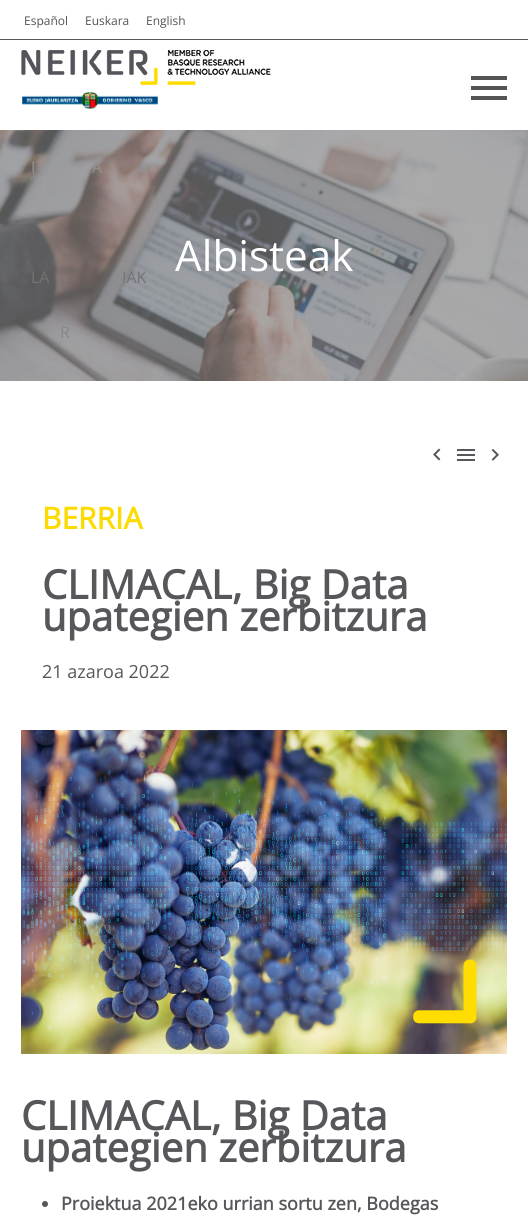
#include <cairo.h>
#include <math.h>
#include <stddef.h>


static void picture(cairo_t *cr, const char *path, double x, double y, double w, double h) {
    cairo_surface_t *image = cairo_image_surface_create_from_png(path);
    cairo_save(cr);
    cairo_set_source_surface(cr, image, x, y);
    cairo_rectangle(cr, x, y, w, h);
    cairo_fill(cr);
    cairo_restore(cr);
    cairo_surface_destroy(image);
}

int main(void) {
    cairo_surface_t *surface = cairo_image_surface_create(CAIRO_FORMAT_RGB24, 528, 1232);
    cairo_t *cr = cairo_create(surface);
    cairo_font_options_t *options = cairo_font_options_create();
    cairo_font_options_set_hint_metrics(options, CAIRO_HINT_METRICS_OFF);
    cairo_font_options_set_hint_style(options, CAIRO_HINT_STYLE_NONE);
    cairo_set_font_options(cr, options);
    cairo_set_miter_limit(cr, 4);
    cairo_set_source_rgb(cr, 1, 1, 1);
    cairo_paint(cr);
    cairo_set_source_rgb(cr, 0.337, 0.337, 0.357);
    cairo_rectangle(cr, 0, 39, 528, 1);
    cairo_fill(cr);
    cairo_select_font_face(cr, "Open Sans", CAIRO_FONT_SLANT_NORMAL, CAIRO_FONT_WEIGHT_NORMAL);
    cairo_set_font_size(cr, 12);
    cairo_set_source_rgb(cr, 0.329, 0.329, 0.329);
    cairo_move_to(cr, 24, 25);
    cairo_show_text(cr, "Español");
    cairo_move_to(cr, 85, 25);
    cairo_show_text(cr, "Euskara");
    cairo_move_to(cr, 146, 25);
    cairo_show_text(cr, "English");
    picture(cr, "img1.png", 21, 50, 250, 35);
    picture(cr, "img2.png", 22, 92, 137, 17);
    cairo_rectangle(cr, 471, 76, 36, 4);
    cairo_fill(cr);
    cairo_rectangle(cr, 471, 86, 36, 4);
    cairo_fill(cr);
    cairo_rectangle(cr, 471, 96, 36, 4);
    cairo_fill(cr);
    picture(cr, "img3.png", 0, 130, 528, 251);
    cairo_set_font_size(cr, 16);
    cairo_set_source_rgb(cr, 0.58, 0.569, 0.573);
    cairo_move_to(cr, 31, 173);
    cairo_show_text(cr, "I");
    cairo_move_to(cr, 92, 173);
    cairo_show_text(cr, "A");
    cairo_set_source_rgb(cr, 0.463, 0.447, 0.451);
    cairo_move_to(cr, 31, 283);
    cairo_show_text(cr, "LA");
    cairo_move_to(cr, 122, 283);
    cairo_show_text(cr, "IAK");
    cairo_set_source_rgb(cr, 0.529, 0.525, 0.533);
    cairo_move_to(cr, 60, 338);
    cairo_show_text(cr, "R");
    cairo_set_font_size(cr, 42.25);
    cairo_set_source_rgb(cr, 1, 1, 1);
    cairo_move_to(cr, 175, 271);
    cairo_show_text(cr, "Albisteak");
    picture(cr, "img4.png", 433, 448, 8, 13);
    picture(cr, "img5.png", 457, 449, 18, 12);
    picture(cr, "img6.png", 491, 448, 8, 13);
    cairo_select_font_face(cr, "Open Sans", CAIRO_FONT_SLANT_NORMAL, CAIRO_FONT_WEIGHT_BOLD);
    cairo_set_font_size(cr, 30);
    cairo_set_source_rgb(cr, 0.996, 0.859, 0);
    cairo_move_to(cr, 42, 529);
    cairo_show_text(cr, "BERRIA");
    cairo_set_font_size(cr, 40);
    cairo_set_source_rgb(cr, 0.337, 0.337, 0.357);
    cairo_move_to(cr, 42, 599);
    cairo_show_text(cr, "CLIMACAL, Big Data");
    cairo_move_to(cr, 42, 631);
    cairo_show_text(cr, "upategien zerbitzura");
    cairo_select_font_face(cr, "Open Sans", CAIRO_FONT_SLANT_NORMAL, CAIRO_FONT_WEIGHT_NORMAL);
    cairo_set_font_size(cr, 18);
    cairo_move_to(cr, 42, 678);
    cairo_show_text(cr, "21 azaroa 2022");
    picture(cr, "img7.png", 21, 730, 486, 324);
    picture(cr, "img8.png", 413, 959, 64, 65);
    cairo_select_font_face(cr, "Open Sans", CAIRO_FONT_SLANT_NORMAL, CAIRO_FONT_WEIGHT_BOLD);
    cairo_set_font_size(cr, 40);
    cairo_move_to(cr, 21, 1130);
    cairo_show_text(cr, "CLIMACAL, Big Data");
    cairo_move_to(cr, 21, 1162);
    cairo_show_text(cr, "upategien zerbitzura");
    cairo_new_path(cr);
    cairo_arc(cr, 45, 1204, 3, 0, 2 * M_PI);
    cairo_fill(cr);
    cairo_set_font_size(cr, 18);
    cairo_move_to(cr, 61, 1210);
    cairo_show_text(cr, "Proiektua 2021eko urrian sortu zen, Bodegas");
    cairo_surface_write_to_png(surface, "page.png");
    cairo_font_options_destroy(options);
    cairo_destroy(cr);
    cairo_surface_destroy(surface);
    return 0;
}
